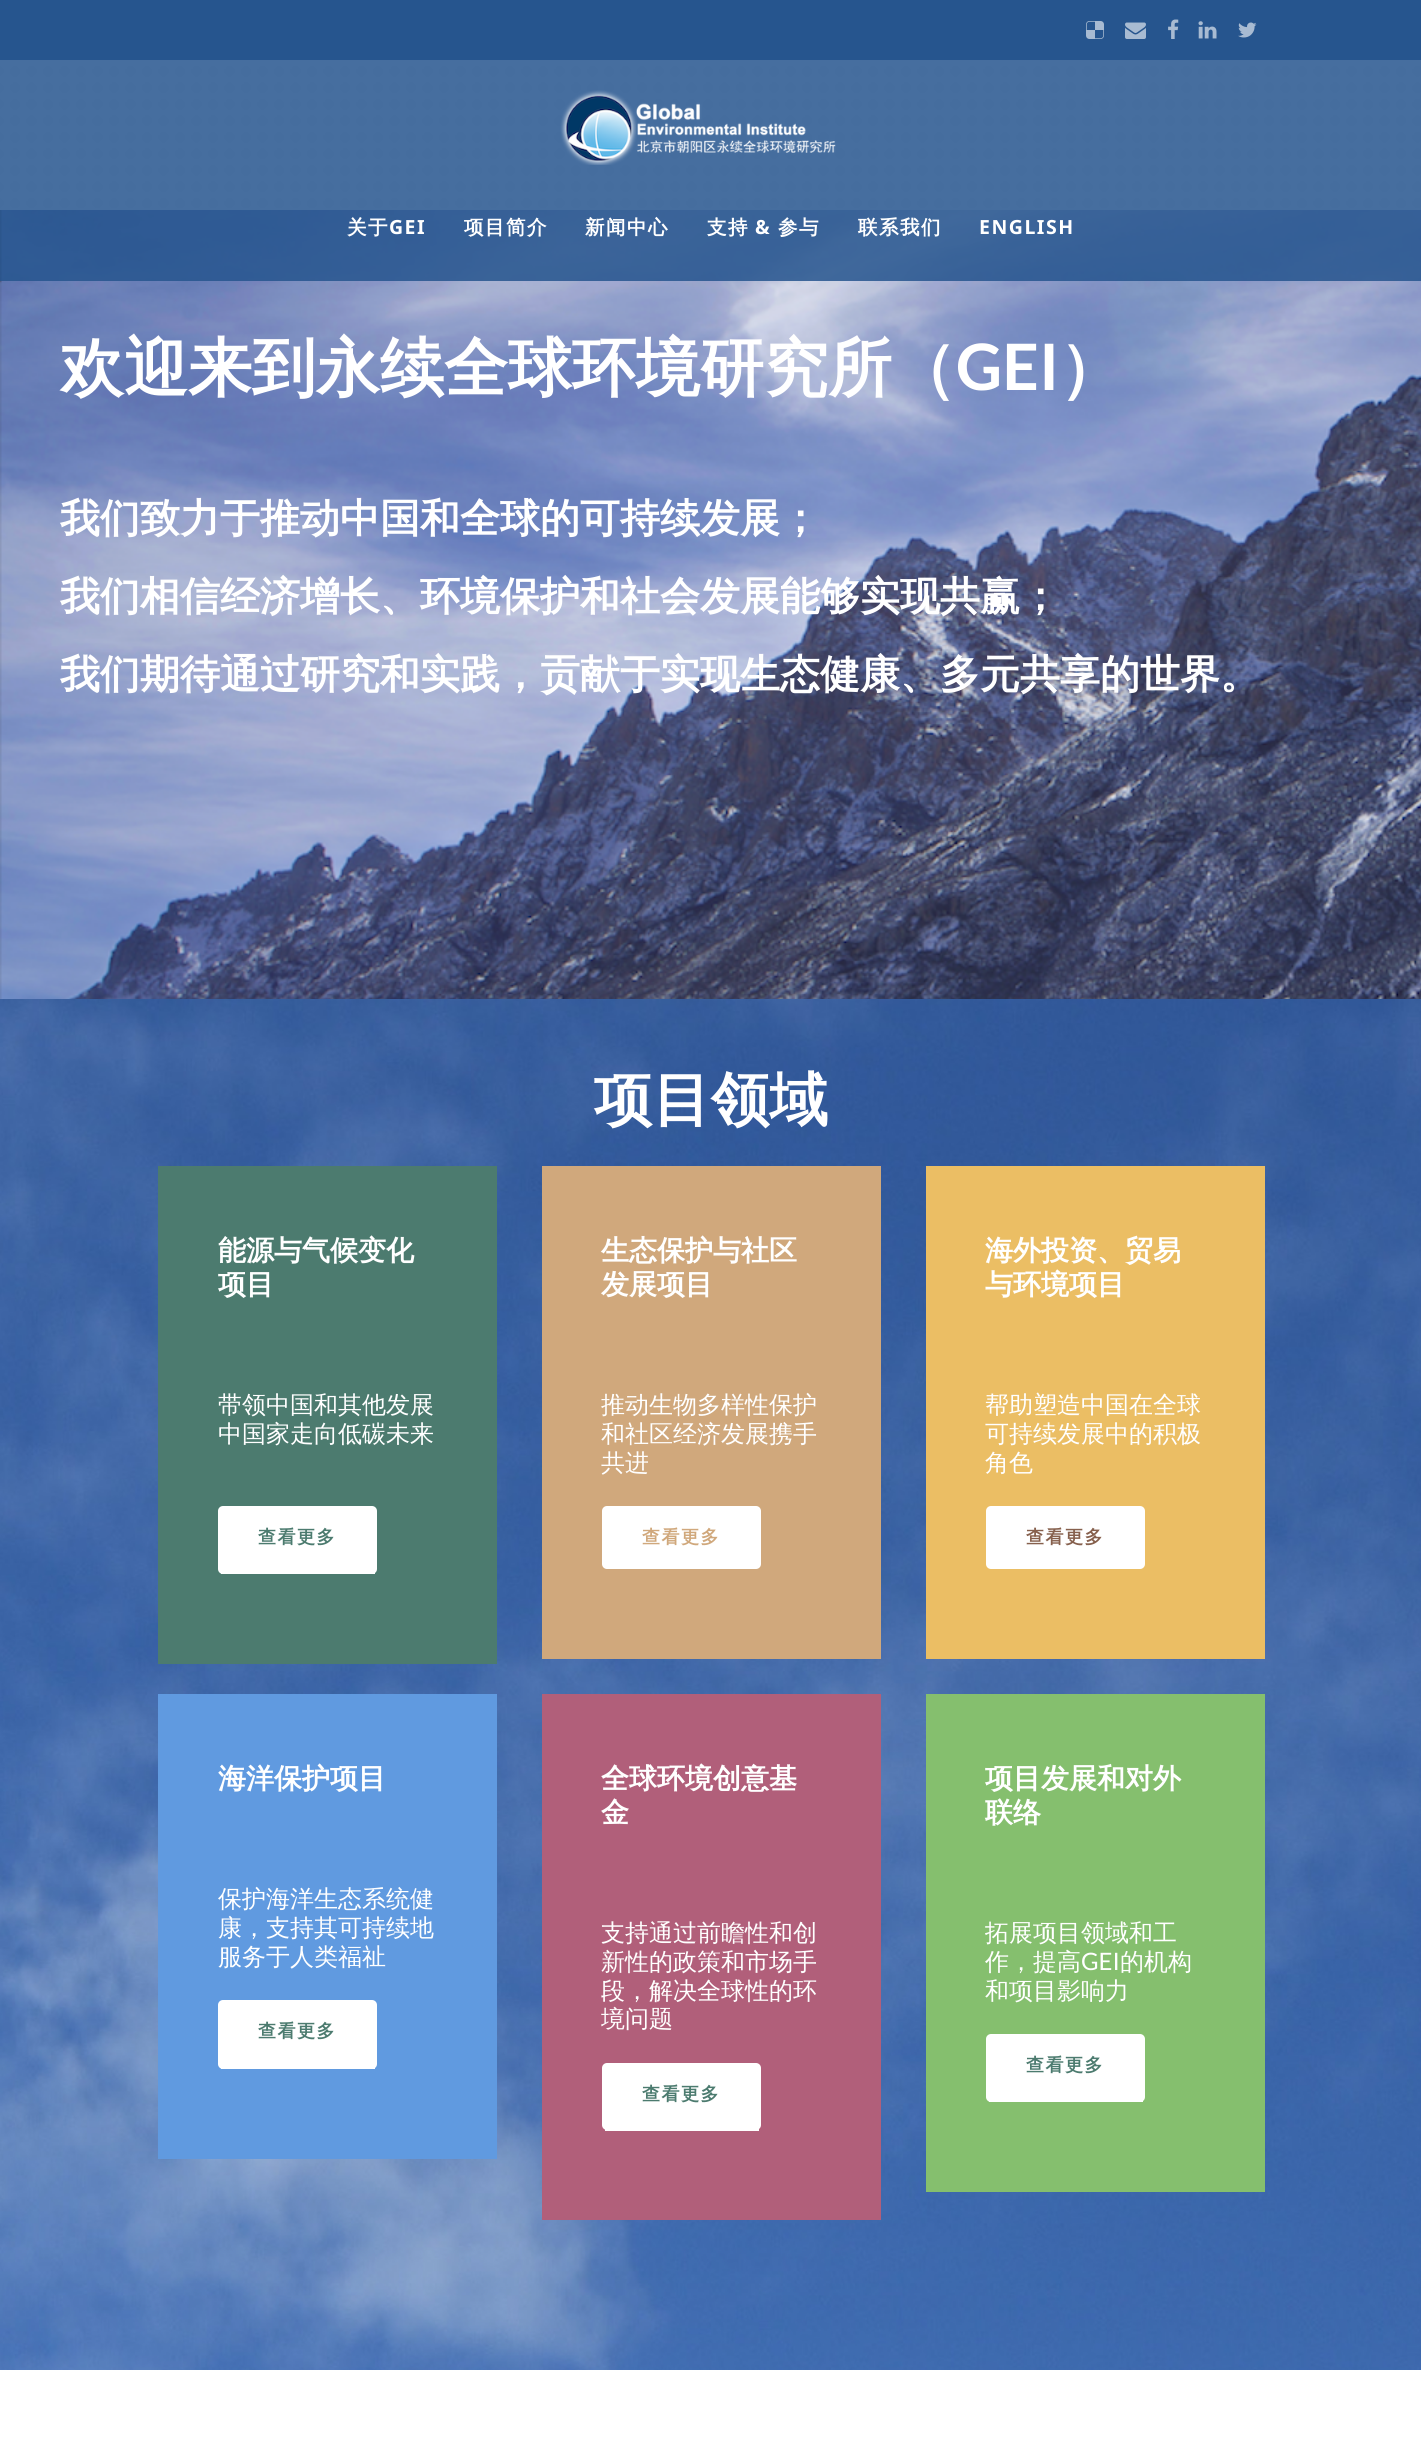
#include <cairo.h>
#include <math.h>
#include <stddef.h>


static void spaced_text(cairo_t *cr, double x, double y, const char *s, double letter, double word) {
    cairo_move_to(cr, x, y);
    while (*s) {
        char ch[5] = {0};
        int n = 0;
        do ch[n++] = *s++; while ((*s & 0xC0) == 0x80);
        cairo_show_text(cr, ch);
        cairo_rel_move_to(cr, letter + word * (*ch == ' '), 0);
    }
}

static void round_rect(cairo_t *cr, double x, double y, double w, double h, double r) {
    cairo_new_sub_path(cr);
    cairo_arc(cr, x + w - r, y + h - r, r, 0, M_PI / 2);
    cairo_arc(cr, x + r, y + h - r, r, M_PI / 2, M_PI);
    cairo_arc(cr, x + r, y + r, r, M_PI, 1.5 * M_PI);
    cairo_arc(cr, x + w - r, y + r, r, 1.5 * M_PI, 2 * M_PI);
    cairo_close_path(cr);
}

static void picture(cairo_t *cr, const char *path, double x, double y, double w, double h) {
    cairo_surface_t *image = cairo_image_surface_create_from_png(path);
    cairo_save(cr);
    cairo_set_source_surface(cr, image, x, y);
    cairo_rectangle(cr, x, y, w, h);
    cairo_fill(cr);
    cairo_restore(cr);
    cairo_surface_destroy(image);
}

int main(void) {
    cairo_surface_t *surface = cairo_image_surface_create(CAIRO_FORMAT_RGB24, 1421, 2443);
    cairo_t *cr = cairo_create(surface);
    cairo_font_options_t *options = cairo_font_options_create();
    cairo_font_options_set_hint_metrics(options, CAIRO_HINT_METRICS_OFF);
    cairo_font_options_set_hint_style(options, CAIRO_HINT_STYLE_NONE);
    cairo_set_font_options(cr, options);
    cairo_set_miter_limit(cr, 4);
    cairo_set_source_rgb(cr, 1, 1, 1);
    cairo_paint(cr);
    cairo_set_source_rgb(cr, 0.149, 0.333, 0.557);
    cairo_rectangle(cr, 0, 0, 1421, 60);
    cairo_fill(cr);
    picture(cr, "img1.png", 1086, 21, 18, 18);
    picture(cr, "img2.png", 1125, 22, 21, 17);
    picture(cr, "img3.png", 1168, 19, 11, 20);
    picture(cr, "img4.png", 1198, 21, 19, 18);
    picture(cr, "img5.png", 1238, 22, 19, 16);
    picture(cr, "img7.png", 0, 66, 1421, 142);
    picture(cr, "img8.png", 0, 210, 1421, 789);
    cairo_set_source_rgba(cr, 0.149, 0.333, 0.557, 0.85);
    cairo_rectangle(cr, 0, 60, 1421, 221);
    cairo_fill(cr);
    picture(cr, "img6.png", 560, 90, 276, 75);
    cairo_select_font_face(cr, "WenQuanYi Zen Hei", CAIRO_FONT_SLANT_NORMAL, CAIRO_FONT_WEIGHT_BOLD);
    cairo_set_font_size(cr, 19.5);
    cairo_set_source_rgb(cr, 1, 1, 1);
    spaced_text(cr, 347, 234, "关于", 1.5, 0);
    cairo_select_font_face(cr, "Noto Sans", CAIRO_FONT_SLANT_NORMAL, CAIRO_FONT_WEIGHT_BOLD);
    spaced_text(cr, 389, 234, "GEI", 1.5, 0);
    cairo_select_font_face(cr, "WenQuanYi Zen Hei", CAIRO_FONT_SLANT_NORMAL, CAIRO_FONT_WEIGHT_BOLD);
    spaced_text(cr, 464, 234, "项目简介", 1.5, 0);
    spaced_text(cr, 585, 234, "新闻中心", 1.5, 0);
    spaced_text(cr, 707, 234, "支持", 1.5, 0);
    cairo_select_font_face(cr, "Noto Sans", CAIRO_FONT_SLANT_NORMAL, CAIRO_FONT_WEIGHT_BOLD);
    spaced_text(cr, 755, 234, "&", 1.5, 0);
    cairo_select_font_face(cr, "WenQuanYi Zen Hei", CAIRO_FONT_SLANT_NORMAL, CAIRO_FONT_WEIGHT_BOLD);
    spaced_text(cr, 778, 234, "参与", 1.5, 0);
    spaced_text(cr, 858, 234, "联系我们", 1.5, 0);
    cairo_select_font_face(cr, "Noto Sans", CAIRO_FONT_SLANT_NORMAL, CAIRO_FONT_WEIGHT_BOLD);
    spaced_text(cr, 979, 234, "ENGLISH", 1.5, 0);
    cairo_select_font_face(cr, "WenQuanYi Zen Hei", CAIRO_FONT_SLANT_NORMAL, CAIRO_FONT_WEIGHT_BOLD);
    cairo_set_font_size(cr, 64);
    cairo_move_to(cr, 60, 390);
    cairo_show_text(cr, "欢迎来到永续全球环境研究所（");
    cairo_select_font_face(cr, "Lato", CAIRO_FONT_SLANT_NORMAL, CAIRO_FONT_WEIGHT_BOLD);
    cairo_move_to(cr, 956, 390);
    cairo_show_text(cr, "GEI");
    cairo_select_font_face(cr, "WenQuanYi Zen Hei", CAIRO_FONT_SLANT_NORMAL, CAIRO_FONT_WEIGHT_BOLD);
    cairo_move_to(cr, 1059, 390);
    cairo_show_text(cr, "）");
    cairo_set_font_size(cr, 40);
    cairo_move_to(cr, 60, 532);
    cairo_show_text(cr, "我们致力于推动中国和全球的可持续发展；");
    cairo_move_to(cr, 60, 610);
    cairo_show_text(cr, "我们相信经济增长、环境保护和社会发展能够实现共赢；");
    cairo_move_to(cr, 60, 688);
    cairo_show_text(cr, "我们期待通过研究和实践，贡献于实现生态健康、多元共享的世界。");
    picture(cr, "img9.png", 0, 999, 1421, 1371);
    cairo_set_font_size(cr, 58.5);
    cairo_move_to(cr, 594, 1120);
    cairo_show_text(cr, "项目领域");
    cairo_set_source_rgb(cr, 0.298, 0.482, 0.435);
    cairo_rectangle(cr, 158, 1166, 339, 498);
    cairo_fill(cr);
    cairo_set_font_size(cr, 28);
    cairo_set_source_rgb(cr, 1, 1, 1);
    cairo_move_to(cr, 218, 1260);
    cairo_show_text(cr, "能源与气候变化");
    cairo_move_to(cr, 218, 1294);
    cairo_show_text(cr, "项目");
    cairo_select_font_face(cr, "WenQuanYi Zen Hei Medium", CAIRO_FONT_SLANT_NORMAL, CAIRO_FONT_WEIGHT_NORMAL);
    cairo_set_font_size(cr, 24);
    cairo_move_to(cr, 218, 1413);
    cairo_show_text(cr, "带领中国和其他发展");
    cairo_move_to(cr, 218, 1442);
    cairo_show_text(cr, "中国家走向低碳未来");
    round_rect(cr, 218, 1506, 159, 68, 5);
    cairo_fill(cr);
    cairo_rectangle(cr, 221, 1573, 154, 1);
    cairo_fill(cr);
    cairo_select_font_face(cr, "WenQuanYi Zen Hei", CAIRO_FONT_SLANT_NORMAL, CAIRO_FONT_WEIGHT_BOLD);
    cairo_set_font_size(cr, 18);
    cairo_set_source_rgb(cr, 0.298, 0.482, 0.435);
    spaced_text(cr, 258, 1543, "查看更多", 1.5, 0);
    cairo_set_source_rgb(cr, 0.816, 0.659, 0.486);
    cairo_rectangle(cr, 542, 1166, 339, 493);
    cairo_fill(cr);
    cairo_set_font_size(cr, 28);
    cairo_set_source_rgb(cr, 1, 1, 1);
    cairo_move_to(cr, 601, 1260);
    cairo_show_text(cr, "生态保护与社区");
    cairo_move_to(cr, 601, 1294);
    cairo_show_text(cr, "发展项目");
    cairo_select_font_face(cr, "WenQuanYi Zen Hei Medium", CAIRO_FONT_SLANT_NORMAL, CAIRO_FONT_WEIGHT_NORMAL);
    cairo_set_font_size(cr, 24);
    cairo_move_to(cr, 601, 1413);
    cairo_show_text(cr, "推动生物多样性保护");
    cairo_move_to(cr, 601, 1442);
    cairo_show_text(cr, "和社区经济发展携手");
    cairo_move_to(cr, 601, 1471);
    cairo_show_text(cr, "共进");
    round_rect(cr, 602, 1506, 159, 63, 5);
    cairo_fill(cr);
    cairo_select_font_face(cr, "WenQuanYi Zen Hei", CAIRO_FONT_SLANT_NORMAL, CAIRO_FONT_WEIGHT_BOLD);
    cairo_set_font_size(cr, 18);
    cairo_set_source_rgb(cr, 0.816, 0.659, 0.486);
    spaced_text(cr, 642, 1543, "查看更多", 1.5, 0);
    cairo_set_source_rgb(cr, 0.918, 0.745, 0.392);
    cairo_rectangle(cr, 926, 1166, 339, 493);
    cairo_fill(cr);
    cairo_set_font_size(cr, 28);
    cairo_set_source_rgb(cr, 1, 1, 1);
    cairo_move_to(cr, 985, 1260);
    cairo_show_text(cr, "海外投资、贸易");
    cairo_move_to(cr, 985, 1294);
    cairo_show_text(cr, "与环境项目");
    cairo_select_font_face(cr, "WenQuanYi Zen Hei Medium", CAIRO_FONT_SLANT_NORMAL, CAIRO_FONT_WEIGHT_NORMAL);
    cairo_set_font_size(cr, 24);
    cairo_move_to(cr, 985, 1413);
    cairo_show_text(cr, "帮助塑造中国在全球");
    cairo_move_to(cr, 985, 1442);
    cairo_show_text(cr, "可持续发展中的积极");
    cairo_move_to(cr, 985, 1471);
    cairo_show_text(cr, "角色");
    round_rect(cr, 986, 1506, 159, 63, 5);
    cairo_fill(cr);
    cairo_select_font_face(cr, "WenQuanYi Zen Hei", CAIRO_FONT_SLANT_NORMAL, CAIRO_FONT_WEIGHT_BOLD);
    cairo_set_font_size(cr, 18);
    cairo_set_source_rgb(cr, 0.525, 0.376, 0.302);
    spaced_text(cr, 1026, 1543, "查看更多", 1.5, 0);
    cairo_set_source_rgb(cr, 0.376, 0.604, 0.878);
    cairo_rectangle(cr, 158, 1694, 339, 465);
    cairo_fill(cr);
    cairo_set_font_size(cr, 28);
    cairo_set_source_rgb(cr, 1, 1, 1);
    cairo_move_to(cr, 218, 1788);
    cairo_show_text(cr, "海洋保护项目");
    cairo_select_font_face(cr, "WenQuanYi Zen Hei Medium", CAIRO_FONT_SLANT_NORMAL, CAIRO_FONT_WEIGHT_NORMAL);
    cairo_set_font_size(cr, 24);
    cairo_move_to(cr, 218, 1907);
    cairo_show_text(cr, "保护海洋生态系统健");
    cairo_move_to(cr, 218, 1936);
    cairo_show_text(cr, "康，支持其可持续地");
    cairo_move_to(cr, 218, 1965);
    cairo_show_text(cr, "服务于人类福祉");
    round_rect(cr, 218, 2000, 159, 69, 5);
    cairo_fill(cr);
    cairo_rectangle(cr, 221, 2068, 154, 1);
    cairo_fill(cr);
    cairo_select_font_face(cr, "WenQuanYi Zen Hei", CAIRO_FONT_SLANT_NORMAL, CAIRO_FONT_WEIGHT_BOLD);
    cairo_set_font_size(cr, 18);
    cairo_set_source_rgb(cr, 0.298, 0.482, 0.435);
    spaced_text(cr, 258, 2037, "查看更多", 1.5, 0);
    cairo_set_source_rgb(cr, 0.694, 0.373, 0.478);
    cairo_rectangle(cr, 542, 1694, 339, 526);
    cairo_fill(cr);
    cairo_set_font_size(cr, 28);
    cairo_set_source_rgb(cr, 1, 1, 1);
    cairo_move_to(cr, 601, 1788);
    cairo_show_text(cr, "全球环境创意基");
    cairo_move_to(cr, 601, 1822);
    cairo_show_text(cr, "金");
    cairo_select_font_face(cr, "WenQuanYi Zen Hei Medium", CAIRO_FONT_SLANT_NORMAL, CAIRO_FONT_WEIGHT_NORMAL);
    cairo_set_font_size(cr, 24);
    cairo_move_to(cr, 601, 1941);
    cairo_show_text(cr, "支持通过前瞻性和创");
    cairo_move_to(cr, 601, 1970);
    cairo_show_text(cr, "新性的政策和市场手");
    cairo_move_to(cr, 601, 1999);
    cairo_show_text(cr, "段，解决全球性的环");
    cairo_move_to(cr, 601, 2027);
    cairo_show_text(cr, "境问题");
    round_rect(cr, 602, 2063, 159, 67, 5);
    cairo_fill(cr);
    cairo_rectangle(cr, 605, 2129, 154, 2);
    cairo_fill(cr);
    cairo_select_font_face(cr, "WenQuanYi Zen Hei", CAIRO_FONT_SLANT_NORMAL, CAIRO_FONT_WEIGHT_BOLD);
    cairo_set_font_size(cr, 18);
    cairo_set_source_rgb(cr, 0.298, 0.482, 0.435);
    spaced_text(cr, 642, 2100, "查看更多", 1.5, 0);
    cairo_set_source_rgb(cr, 0.522, 0.749, 0.431);
    cairo_rectangle(cr, 926, 1694, 339, 498);
    cairo_fill(cr);
    cairo_set_font_size(cr, 28);
    cairo_set_source_rgb(cr, 1, 1, 1);
    cairo_move_to(cr, 985, 1788);
    cairo_show_text(cr, "项目发展和对外");
    cairo_move_to(cr, 985, 1822);
    cairo_show_text(cr, "联络");
    cairo_select_font_face(cr, "WenQuanYi Zen Hei Medium", CAIRO_FONT_SLANT_NORMAL, CAIRO_FONT_WEIGHT_NORMAL);
    cairo_set_font_size(cr, 24);
    cairo_move_to(cr, 985, 1941);
    cairo_show_text(cr, "拓展项目领域和工");
    cairo_move_to(cr, 985, 1970);
    cairo_show_text(cr, "作，提高");
    cairo_select_font_face(cr, "Lato", CAIRO_FONT_SLANT_NORMAL, CAIRO_FONT_WEIGHT_NORMAL);
    cairo_move_to(cr, 1081, 1970);
    cairo_show_text(cr, "GEI");
    cairo_select_font_face(cr, "WenQuanYi Zen Hei Medium", CAIRO_FONT_SLANT_NORMAL, CAIRO_FONT_WEIGHT_NORMAL);
    cairo_move_to(cr, 1120, 1970);
    cairo_show_text(cr, "的机构");
    cairo_move_to(cr, 985, 1999);
    cairo_show_text(cr, "和项目影响力");
    round_rect(cr, 986, 2034, 159, 68, 5);
    cairo_fill(cr);
    cairo_rectangle(cr, 989, 2101, 154, 1);
    cairo_fill(cr);
    cairo_select_font_face(cr, "WenQuanYi Zen Hei", CAIRO_FONT_SLANT_NORMAL, CAIRO_FONT_WEIGHT_BOLD);
    cairo_set_font_size(cr, 18);
    cairo_set_source_rgb(cr, 0.298, 0.482, 0.435);
    spaced_text(cr, 1026, 2071, "查看更多", 1.5, 0);
    cairo_surface_write_to_png(surface, "page.png");
    cairo_font_options_destroy(options);
    cairo_destroy(cr);
    cairo_surface_destroy(surface);
    return 0;
}
